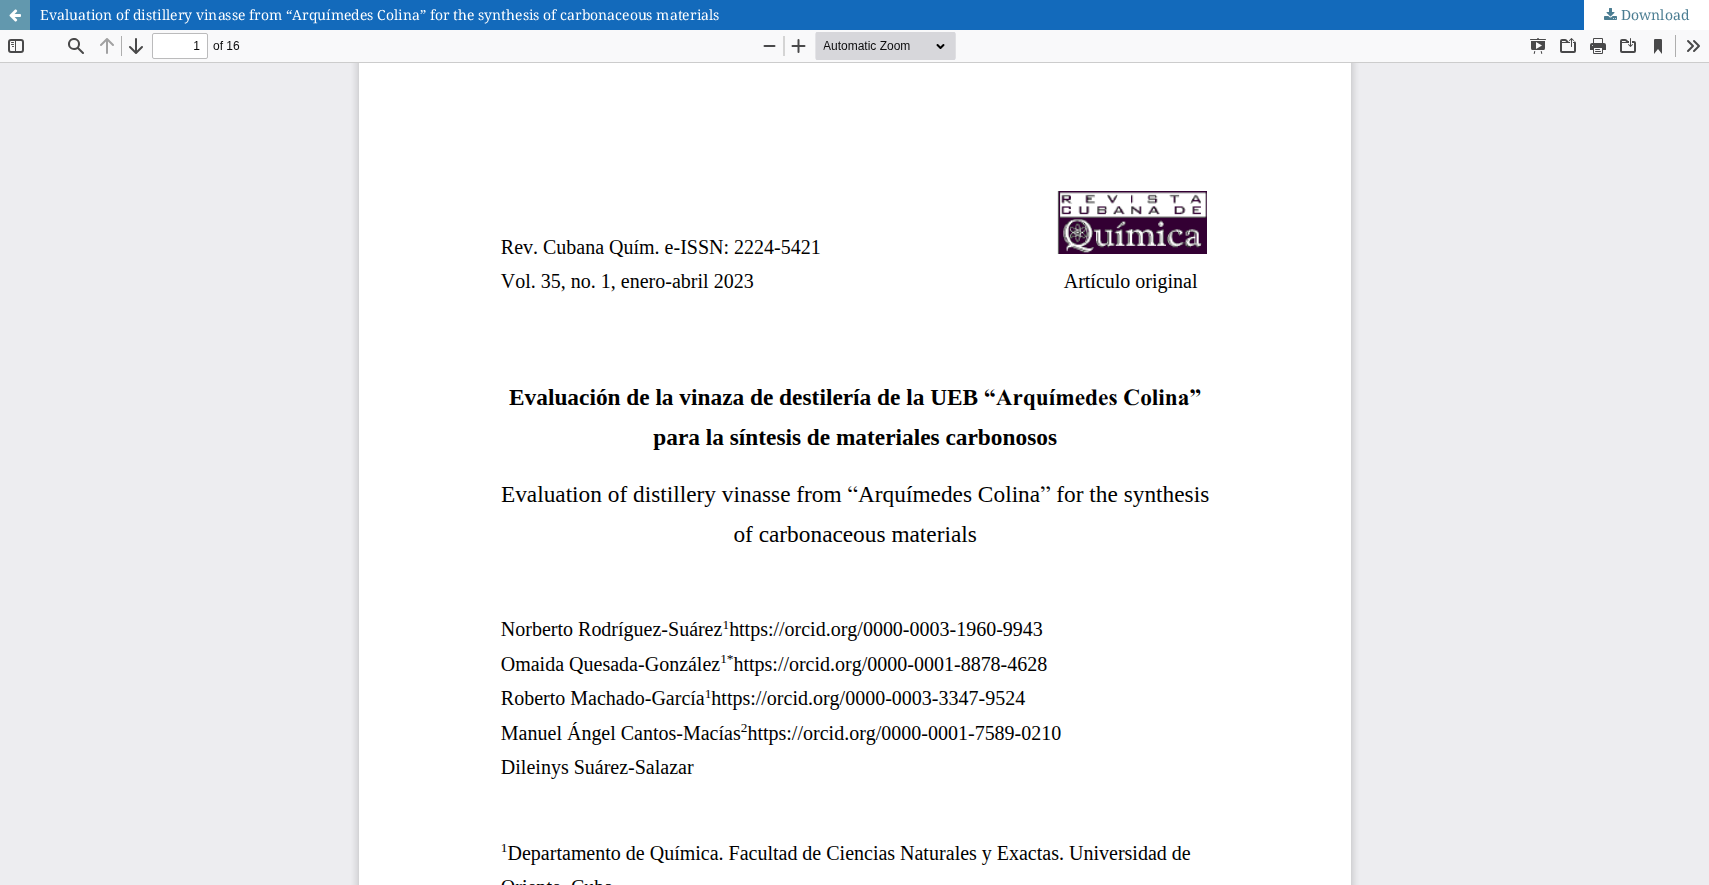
%!PS
<< /PageSize [1709 885] >> setpagedevice
/rgb { dup -16 bitshift 255 div exch dup -8 bitshift 255 and 255 div exch 255 and 255 div setrgbcolor } def
/font { [ exch dup neg 0 0 3 -1 roll 0 0 ] selectfont } def
/text { moveto show } def
/picture { 5 dict begin { /h /w /y /x /name } { exch def } forall
  gsave x y translate w h scale
  w h 8 [w 0 0 h 0 0] name (r) file false 3 colorimage grestore end } def
0 885 translate 1 -1 scale
4 setmiterlimit
/s1 { /NotoSerif-Regular 14 font 16#FFFFFF rgb } def
/s2 { /NotoSerif-Regular 14 font 16#4B7D92 rgb } def
16#FFFFFF rgb
0 0 1709 885 rectfill
16#136ABB rgb
30 0 1554 30 rectfill
16#6298AE rgb
0 0 30 30 rectfill
(pic1.raw) 9 9 12 13 picture
s1
(Evaluation of distillery vinasse from “Arquímedes Colina” for the synthesis of carbonaceous materials) 40 20 text
(pic2.raw) 1604 8 13 12 picture
s2
(Download) 1621 20 text
(pic3.raw) 0 30 1709 855 picture
showpage
